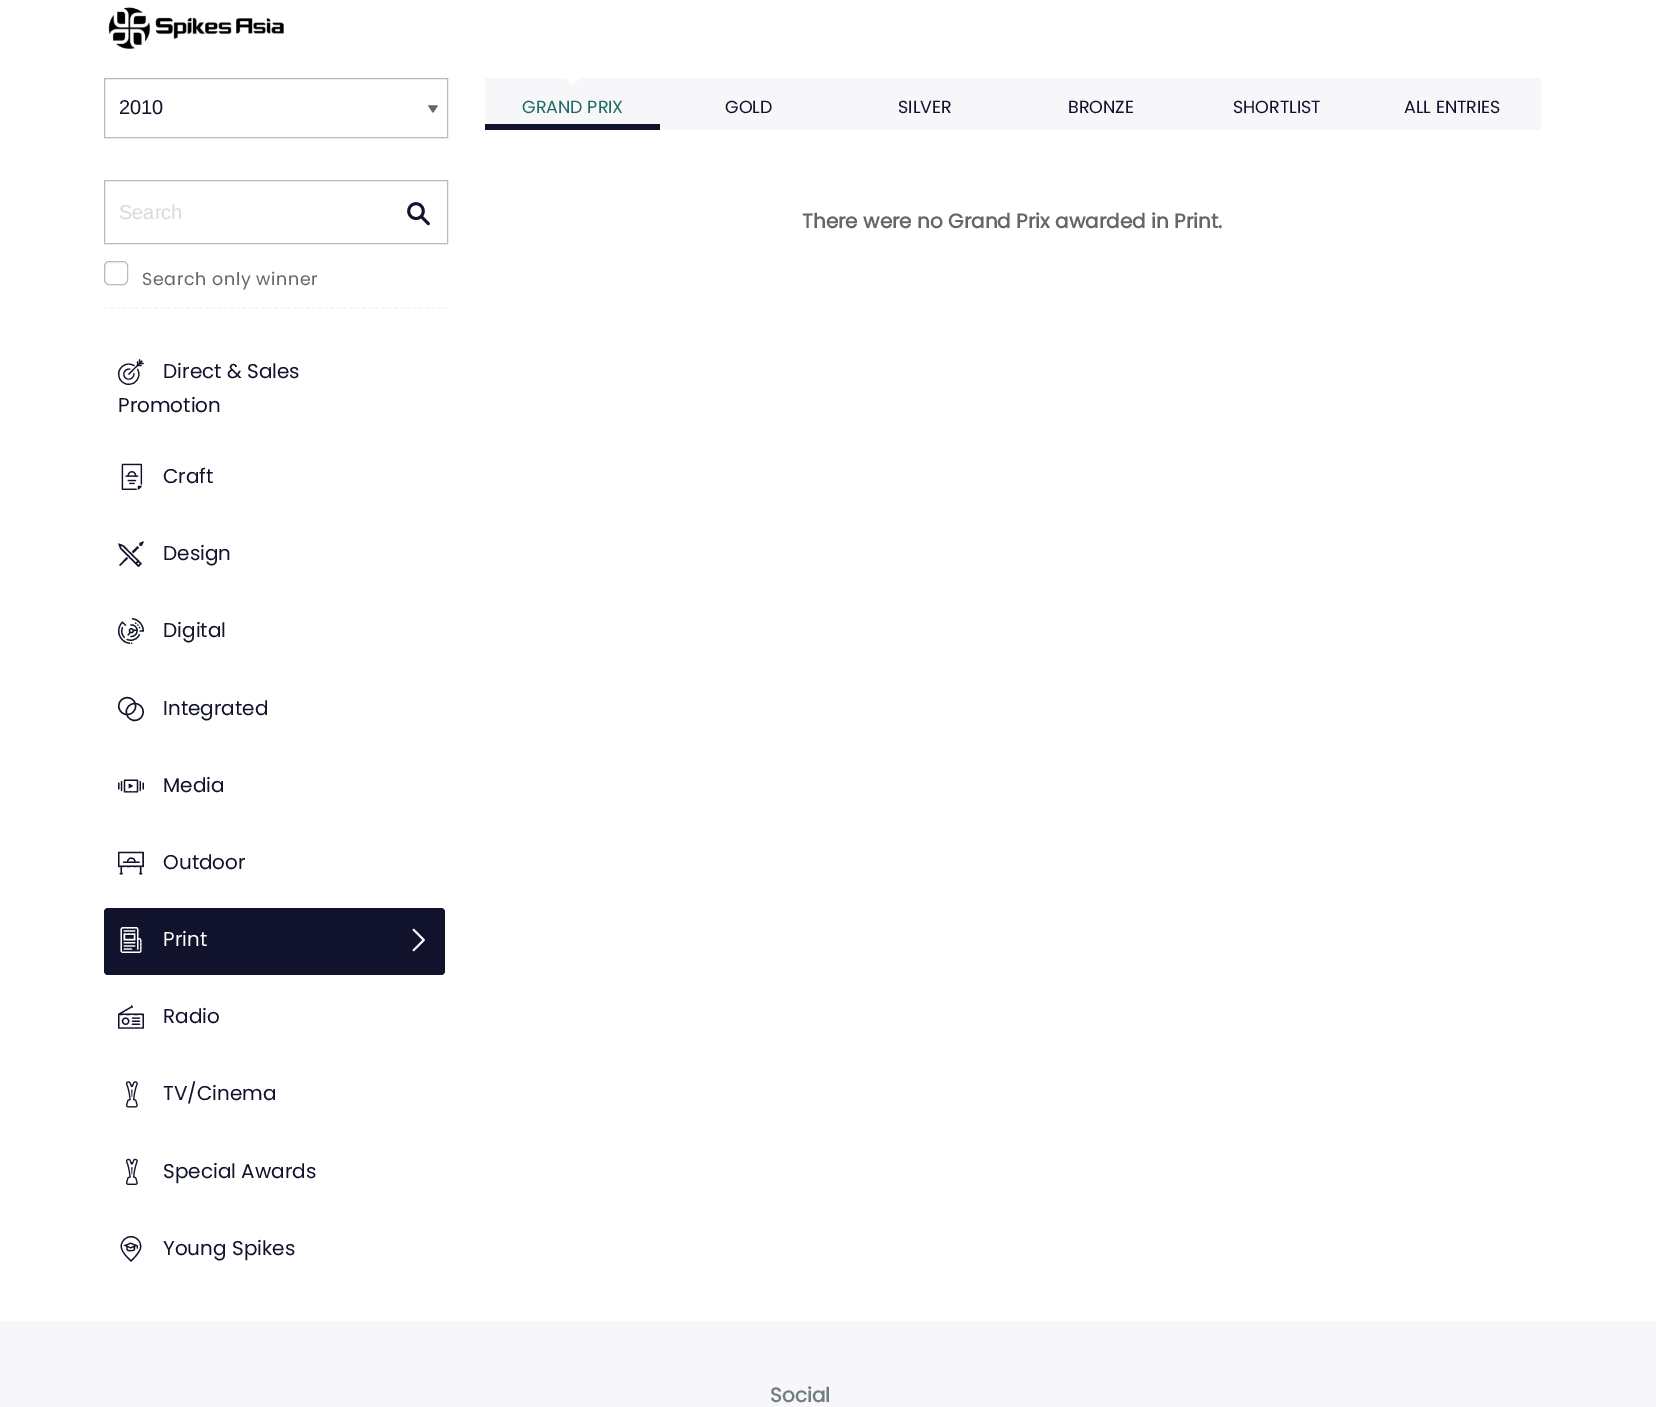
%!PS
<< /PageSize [1656 1407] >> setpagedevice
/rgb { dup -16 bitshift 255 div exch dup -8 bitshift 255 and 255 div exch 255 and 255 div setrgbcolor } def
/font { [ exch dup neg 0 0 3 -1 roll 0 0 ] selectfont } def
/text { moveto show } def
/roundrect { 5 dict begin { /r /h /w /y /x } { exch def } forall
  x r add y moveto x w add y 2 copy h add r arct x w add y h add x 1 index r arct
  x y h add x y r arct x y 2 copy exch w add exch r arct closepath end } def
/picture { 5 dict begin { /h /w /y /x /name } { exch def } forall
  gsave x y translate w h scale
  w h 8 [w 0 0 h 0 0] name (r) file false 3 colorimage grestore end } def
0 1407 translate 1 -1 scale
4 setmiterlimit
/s1 { /LiberationSans-Regular 20 font 16#10132B rgb } def
/s2 { /LiberationSans-Regular 20 font 16#D5DBDD rgb } def
/s3 { /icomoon-Regular 26 font 16#10132B rgb } def
/s4 { /Poppins-Regular 20 font 16#10132B rgb } def
/s5 { /icomoon-Regular 26 font 16#FFFFFF rgb } def
/s6 { /Poppins-Regular 20 font 16#FFFFFF rgb } def
/s7 { /Poppins-Regular 17.5 font 16#206C65 rgb } def
/s8 { /Poppins-Regular 17.5 font 16#10132B rgb } def
/s9 { /Poppins-Bold 20 font 16#666666 rgb } def
/s10 { /Poppins-Bold 20 font 16#6F7E82 rgb } def
16#FFFFFF rgb
0 0 1656 1407 rectfill
(pic1.raw) 108 7 176 42 picture
16#B2BDC0 rgb
104.5 78.5 343 59 rectstroke
s1
(2010) 119 114 text
/icomoon-Regular 10 font
16#666666 rgb
gsave 428 104 translate 90 rotate 0 0 moveto (9) show grestore
16#F2F2F2 rgb
1.2 setlinewidth
[3.75 2.55] 0 setdash
104 308 moveto 447.5 308 lineto stroke
16#B2BDC0 rgb
1 setlinewidth
[] 0 setdash
104.5 180.5 343 63 rectstroke
s2
(Search) 119 219 text
(pic2.raw) 407 202 23 24 picture
16#F7F7F7 rgb
110 264 moveto 124.5 264 lineto 124 263.5 123 263 122 263 curveto 109 263 lineto 107 263 105 265 105 267 curveto 105 280 lineto 105 281.5 106 283 107.5 283.5 curveto 106.5 282.5 106 281 106 279.5 curveto 106 268.5 lineto 107 266 lineto 107.5 264.5 108.5 264 110 264 curveto closepath fill
16#B2BDC0 rgb
104.5 261.5 23 23 4.5 roundrect stroke
/Poppins-Regular 17.5 font
16#666666 rgb
142 285 moveto 0.6 0 (Search only winner) ashow
s3
(+) 118 385 text
s4
(Direct & Sales) 163 378 text
(Promotion) 118 412 text
(pic3.raw) 121 463 22 27 picture
(Craft) 163 483 text
s3
(\)) 118 567 text
s4
(Design) 163 560 text
s3
(\() 118 644 text
s4
(Digital) 163 637 text
s3
(^) 118 722 text
s4
(Integrated) 163 715 text
s3
(_) 118 799 text
s4
(Media) 163 792 text
s3
(|) 118 876 text
s4
(Outdoor) 163 869 text
104 908 341 67 4 roundrect fill
s5
(?) 118 953 text
s6
(Print) 163 946 text
(pic4.raw) 412 928 13 24 picture
s3
(;) 118 1030 text
s4
(Radio) 163 1023 text
(pic5.raw) 125 1081 13 27 picture
(TV/Cinema) 163 1100 text
(pic6.raw) 125 1158 13 27 picture
(Special Awards) 163 1178 text
s3
(1) 118 1262 text
s4
(Young Spikes) 163 1255 text
16#F7F7F9 rgb
485 78 1056 52 rectfill
16#10132B rgb
485 124 175 6 rectfill
16#FFFFFF rgb
565 77.5 moveto 580 77.5 lineto 572.5 85 lineto closepath fill
s7
(GRAND PRIX) 522 113 text
s8
(GOLD) 725 113 text
(SILVER) 898 113 text
(BRONZE) 1068 113 text
(SHORTLIST) 1233 113 text
(ALL ENTRIES) 1404 113 text
s9
(There were no Grand Prix awarded in Print.) 802 228 text
16#F7F7F9 rgb
0 1321 1656 86 rectfill
s10
(Social) 770 1402 text
showpage
